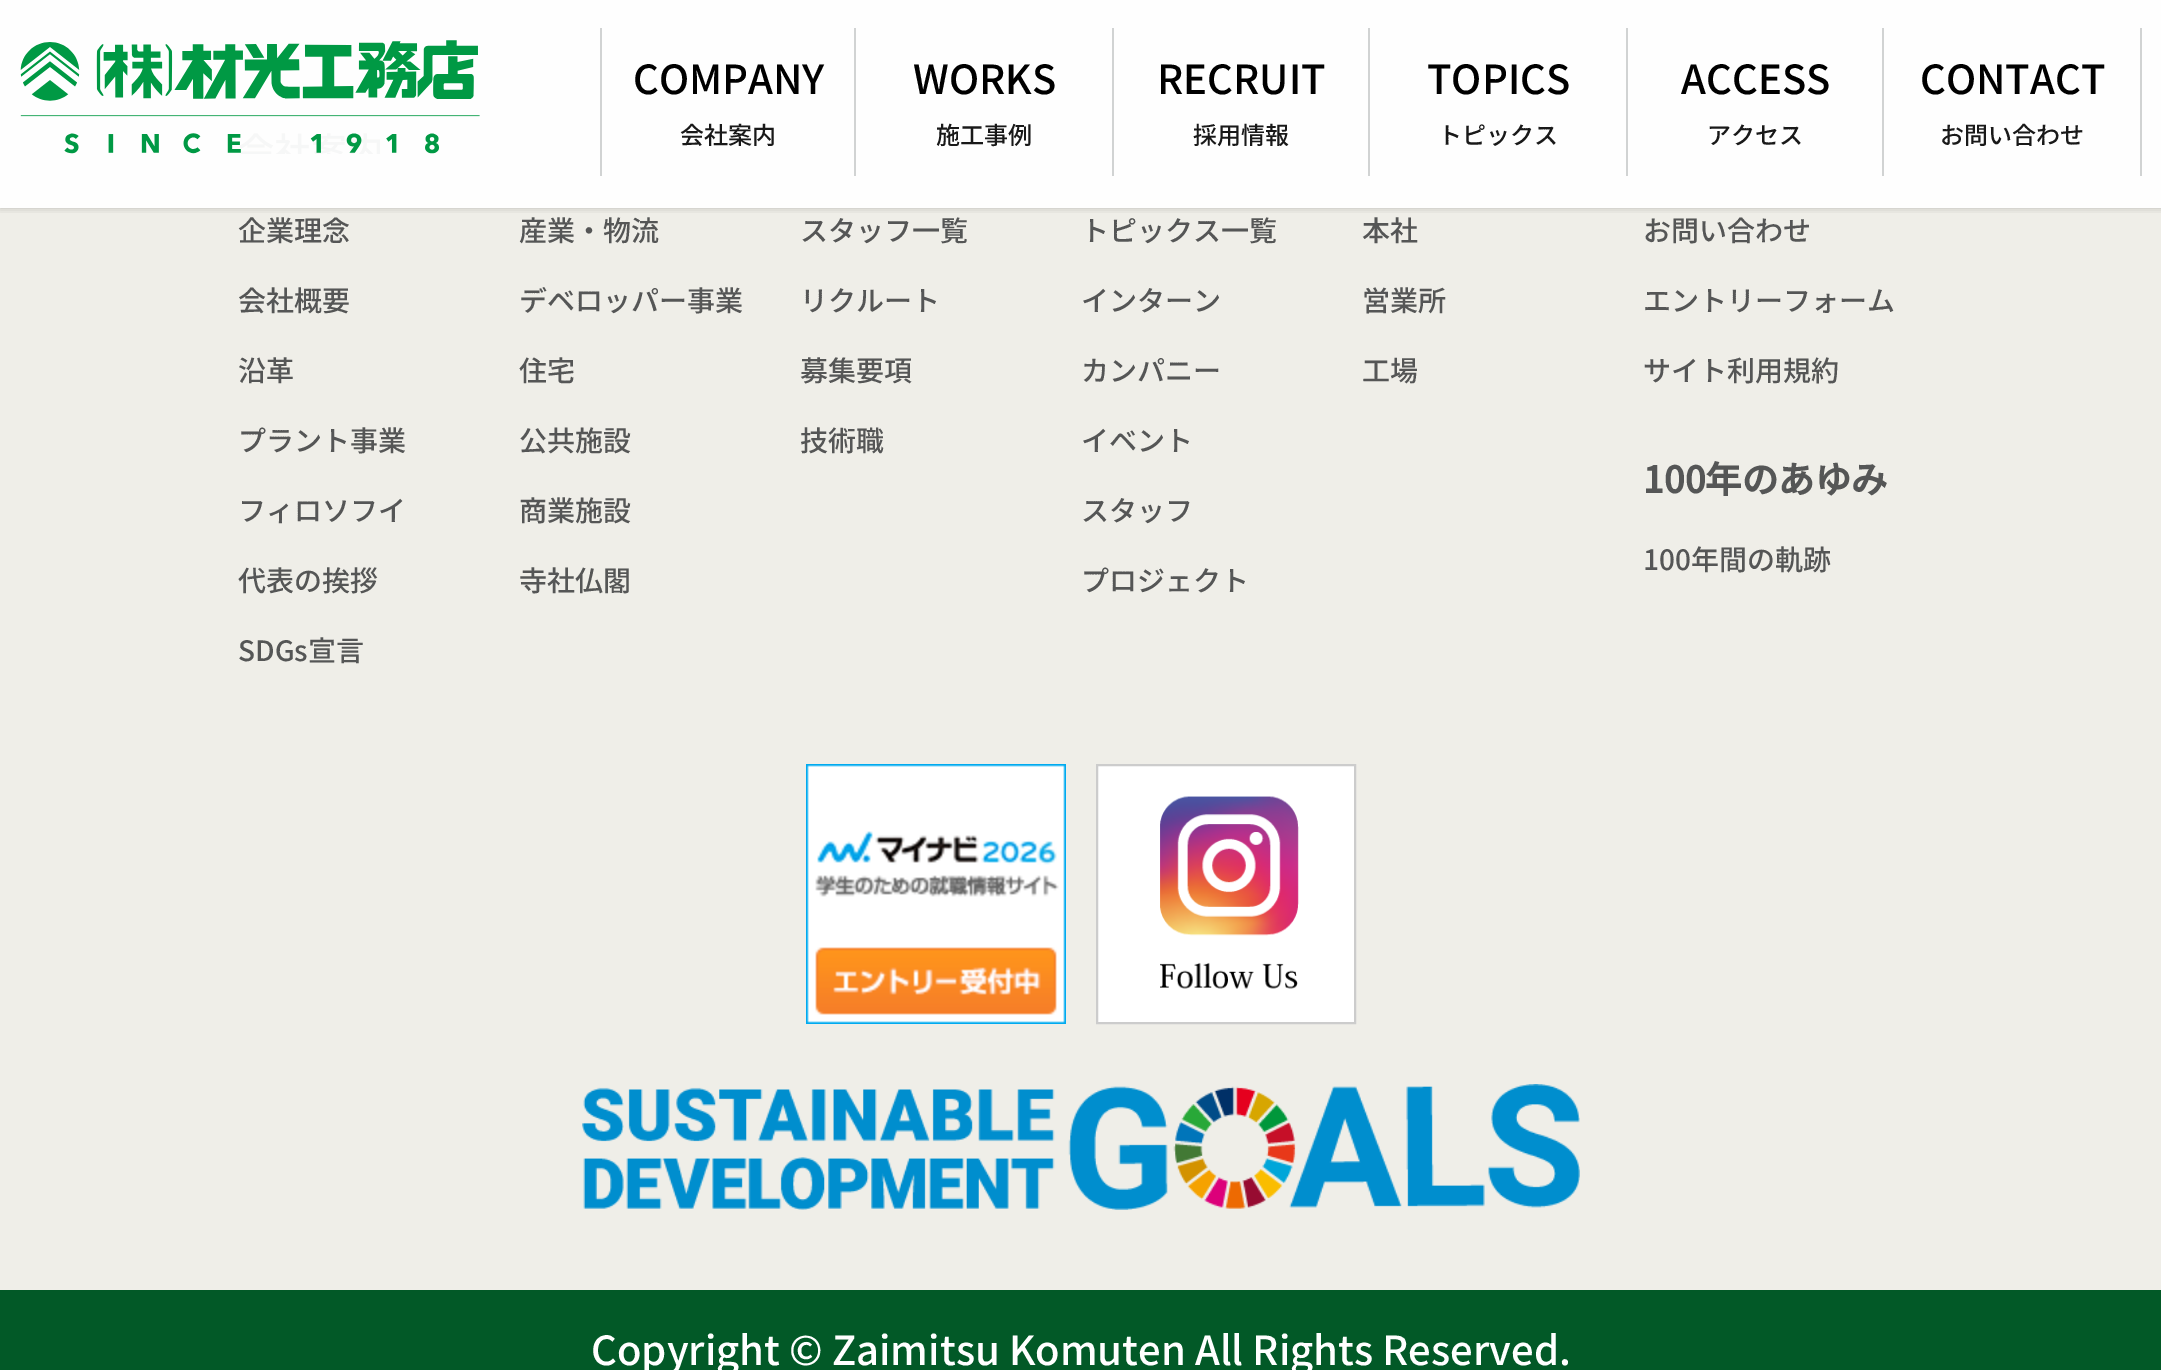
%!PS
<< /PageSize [2161 1370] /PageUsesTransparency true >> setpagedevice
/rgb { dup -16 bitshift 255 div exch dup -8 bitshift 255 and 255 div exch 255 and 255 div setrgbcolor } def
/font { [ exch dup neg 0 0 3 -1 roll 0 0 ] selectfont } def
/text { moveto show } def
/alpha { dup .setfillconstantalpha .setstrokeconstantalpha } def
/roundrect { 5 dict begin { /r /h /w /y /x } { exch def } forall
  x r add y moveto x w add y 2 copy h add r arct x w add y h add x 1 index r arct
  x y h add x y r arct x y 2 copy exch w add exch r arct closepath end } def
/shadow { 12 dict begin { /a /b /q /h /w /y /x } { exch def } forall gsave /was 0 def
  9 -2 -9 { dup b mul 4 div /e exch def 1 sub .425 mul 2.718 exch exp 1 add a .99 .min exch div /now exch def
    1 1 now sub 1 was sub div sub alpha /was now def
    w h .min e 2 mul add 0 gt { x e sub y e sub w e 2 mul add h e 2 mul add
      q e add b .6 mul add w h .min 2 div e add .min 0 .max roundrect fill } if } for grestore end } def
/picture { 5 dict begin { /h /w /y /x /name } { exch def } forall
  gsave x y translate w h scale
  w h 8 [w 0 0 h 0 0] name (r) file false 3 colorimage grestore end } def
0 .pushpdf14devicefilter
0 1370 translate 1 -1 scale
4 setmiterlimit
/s1 { /NotoSansJP-Thin 40 font 16#000000 rgb } def
/s2 { /NotoSansJP-Thin 24 font 16#191919 rgb } def
/s3 { /NotoSansJP-Thin 28 font 16#555656 rgb } def
/s4 { /NotoSansJP-Bold 36.5 font 16#555656 rgb } def
/s5 { /NotoSansJP-Thin 40 font 16#FFFFFF rgb } def
16#EFEEE8 rgb
0 0 2161 1370 rectfill
16#FEFEFE rgb
0 0 2161 208 rectfill
gsave
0 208 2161 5 rectclip
16#000000 rgb
0 0 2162 208 0 4 0.2 shadow
grestore
(pic1.raw) 20 40 460 114 picture
16#D1D3D3 rgb
854 28 2 148 rectfill
600 28 2 148 rectfill
s1
(COMPANY) 633 94 text
s2
(会社案内) 680 144 text
16#D1D3D3 rgb
1112 28 2 148 rectfill
s1
(WORKS) 913 94 text
s2
(施工事例) 936 144 text
16#D1D3D3 rgb
1368 28 2 148 rectfill
s1
(RECRUIT) 1157 94 text
s2
(採用情報) 1193 144 text
16#D1D3D3 rgb
1626 28 2 148 rectfill
s1
(TOPICS) 1427 94 text
s2
(トピックス) 1438 144 text
16#D1D3D3 rgb
1882 28 2 148 rectfill
s1
(ACCESS) 1681 94 text
s2
(アクセス) 1707 144 text
16#D1D3D3 rgb
2140 28 2 148 rectfill
s1
(CONTACT) 1920 94 text
s2
(お問い合わせ) 1940 144 text
s3
(企業理念) 238 241 text
(会社概要) 238 311 text
(沿革) 238 381 text
(プラント事業) 238 451 text
(フィロソフイ) 238 521 text
(代表の挨拶) 238 591 text
(SDGs宣言) 238 661 text
(産業・物流) 519 241 text
(デベロッパー事業) 519 311 text
(住宅) 519 381 text
(公共施設) 519 451 text
(商業施設) 519 521 text
(寺社仏閣) 519 591 text
(スタッフ一覧) 800 241 text
(リクルート) 800 311 text
(募集要項) 800 381 text
(技術職) 800 451 text
(トピックス一覧) 1081 241 text
(インターン) 1081 311 text
(カンパニー) 1081 381 text
(イベント) 1081 451 text
(スタッフ) 1081 521 text
(プロジェクト) 1081 591 text
(本社) 1362 241 text
(営業所) 1362 311 text
(工場) 1362 381 text
(お問い合わせ) 1643 241 text
(エントリーフォーム) 1643 311 text
(サイト利用規約) 1643 381 text
s4
(100年のあゆみ) 1643 493 text
s3
(100年間の軌跡) 1643 570 text
(pic2.raw) 806 764 260 260 picture
16#FFFFFF rgb
1097 765 moveto 1355 765 lineto 1355 1023 lineto 1097 1023 lineto closepath gsave fill grestore
16#CCCCCC rgb
2 setlinewidth
stroke
(pic3.raw) 1160 796 139 193 picture
(pic4.raw) 582 1084 998 126 picture
16#025927 rgb
0 1290 2161 80 rectfill
s5
(Copyright © Zaimitsu Komuten All Rights Reserved.) 591 1365 text
.poppdf14devicefilter showpage
